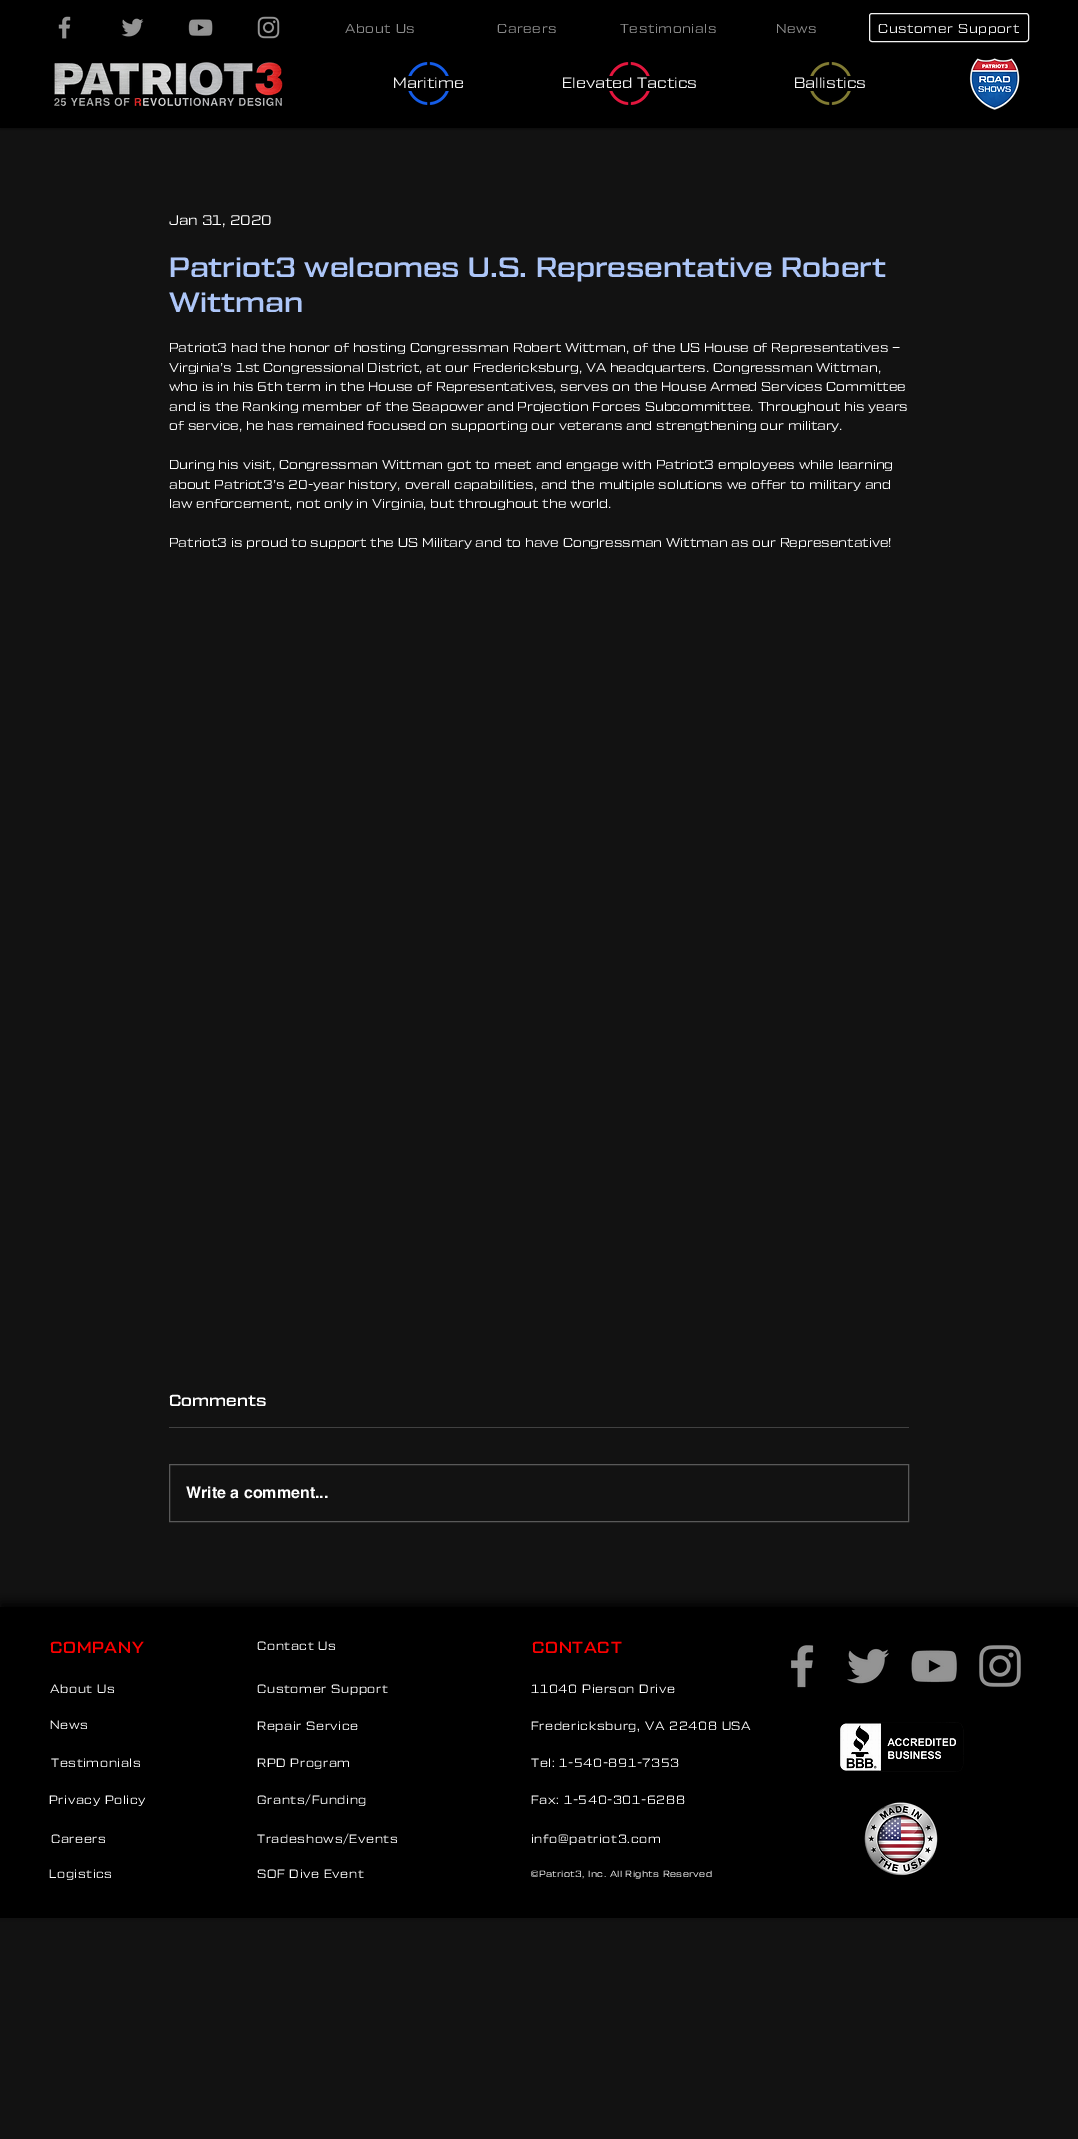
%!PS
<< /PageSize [1078 2139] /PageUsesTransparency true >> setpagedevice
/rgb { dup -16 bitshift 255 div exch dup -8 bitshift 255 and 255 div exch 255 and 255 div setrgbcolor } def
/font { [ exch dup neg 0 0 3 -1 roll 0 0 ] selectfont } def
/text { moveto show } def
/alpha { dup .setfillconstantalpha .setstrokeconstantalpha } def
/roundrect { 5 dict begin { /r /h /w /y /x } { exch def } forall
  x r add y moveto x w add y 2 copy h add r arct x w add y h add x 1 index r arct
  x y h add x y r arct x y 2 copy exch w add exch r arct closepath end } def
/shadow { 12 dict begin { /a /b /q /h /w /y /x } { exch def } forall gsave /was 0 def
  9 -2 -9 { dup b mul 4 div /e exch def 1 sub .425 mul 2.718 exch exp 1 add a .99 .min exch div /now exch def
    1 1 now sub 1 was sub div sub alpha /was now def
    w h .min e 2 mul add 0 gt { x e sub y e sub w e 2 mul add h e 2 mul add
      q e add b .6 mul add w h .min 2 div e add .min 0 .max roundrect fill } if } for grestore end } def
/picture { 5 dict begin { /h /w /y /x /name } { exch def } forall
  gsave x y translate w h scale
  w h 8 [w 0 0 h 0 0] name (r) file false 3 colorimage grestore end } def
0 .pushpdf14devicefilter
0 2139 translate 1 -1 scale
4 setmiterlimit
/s1 { /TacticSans-Regular 15 font 16#F3F3F3 rgb } def
/s2 { /TacticSans-Regular 14 font 16#FFFFFF rgb } def
/s3 { /TacticSans-Medium 28 font 16#ADC6F8 rgb } def
/s4 { /TacticSans-Regular 13 font 16#FFFFFF rgb } def
/s5 { /TacticSans-Medium 16 font 16#FFFFFF rgb } def
/s6 { /helvetica-Bold 16 font 16#FFFFFF rgb } def
16#121212 rgb
0 0 1078 2139 rectfill
16#000000 rgb
0 0 1078 128 0 2.5 0.7 shadow
0 0 1078 128 rectfill
(pic1.raw) 58 16 13 23 picture
(pic2.raw) 121 18 23 19 picture
(pic3.raw) 188 19 25 17 picture
(pic4.raw) 257 16 23 23 picture
/TacticSans-Regular 13 font
16#8C8C8C rgb
345 33 moveto 0.6 0 (About Us) ashow
497 33 moveto 0.6 0 (Careers) ashow
620 33 moveto 0.6 0 (Testimonials) ashow
776 33 moveto 0.6 0 (News) ashow
16#F3F3F3 rgb
869.5 13.5 159 28 2.5 roundrect stroke
878 33 moveto 0.6 0 (Customer Support) ashow
(pic5.raw) 54 62 229 45 picture
(pic6.raw) 408 62 41 43 picture
(pic7.raw) 609 62 41 43 picture
(pic8.raw) 810 62 41 43 picture
(pic9.raw) 969 58 51 52 picture
16#000000 rgb
408 76 443 15 rectfill
s1
(Maritime) 393 88 text
(Elevated Tactics) 562 88 text
(Ballistics) 794 88 text
s2
(Jan 31, 2020) 169 225 text
s3
(Patriot3 welcomes U.S. Representative Robert) 169 277 text
(Wittman) 169 312 text
s4
(Patriot3 had the honor of hosting Congressman Robert Wittman, of the US House of Representatives –) 169 352 text
(Virginia’s 1st Congressional District, at our Fredericksburg, VA headquarters. Congressman Wittman,) 169 372 text
(who is in his 6th term in the House of Representatives, serves on the House Armed Services Committee) 169 391 text
(and is the Ranking member of the Seapower and Projection Forces Subcommittee. Throughout his years) 169 411 text
(of service, he has remained focused on supporting our veterans and strengthening our military.) 169 430 text
(During his visit, Congressman Wittman got to meet and engage with Patriot3 employees while learning) 169 469 text
(about Patriot3’s 20-year history, overall capabilities, and the multiple solutions we offer to military and) 169 489 text
(law enforcement, not only in Virginia, but throughout the world.) 169 508 text
(Patriot3 is proud to support the US Military and to have Congressman Wittman as our Representative!) 169 547 text
s5
(Comments) 169 1406 text
16#414141 rgb
169 1427 740 1 rectfill
16#595959 rgb
169.5 1464.5 739 57 rectstroke
s6
(Write a comment...) 186 1498 text
16#000000 rgb
0 1602 1078 311 0 5.5 0.89 shadow
0 1607 1078 311 rectfill
/TacticSans-Medium 16 font
16#FA0000 rgb
50 1653 moveto 0.75 0 (COMPANY) ashow
/TacticSans-Regular 12 font
16#FFFFFF rgb
257 1650 moveto 0.6 0 (Contact Us) ashow
/TacticSans-Medium 16 font
16#FA0000 rgb
532 1653 moveto 0.75 0 (CONTACT) ashow
(pic10.raw) 791 1645 23 43 picture
(pic11.raw) 847 1648 42 36 picture
(pic12.raw) 911 1650 46 33 picture
(pic13.raw) 979 1645 42 42 picture
/TacticSans-Regular 12 font
16#FFFFFF rgb
50 1693 moveto 0.6 0 (About Us) ashow
257 1693 moveto 0.6 0 (Customer Support) ashow
531 1693 moveto 0.6 0 (11040 Pierson Drive) ashow
50 1729 moveto 0.6 0 (News) ashow
257 1730 moveto 0.6 0 (Repair Service) ashow
531 1730 moveto 0.6 0 (Fredericksburg, VA 22408 USA) ashow
(pic14.raw) 840 1722 124 50 picture
51 1767 moveto 0.6 0 (Testimonials) ashow
257 1767 moveto 0.6 0 (RPD Program) ashow
531 1767 moveto 0.6 0 (Tel: 1-540-891-7353) ashow
49 1804 moveto 0.6 0 (Privacy Policy) ashow
257 1804 moveto 0.6 0 (Grants/Funding) ashow
531 1804 moveto 0.6 0 (Fax: 1-540-301-6288) ashow
51 1843 moveto 0.6 0 (Careers) ashow
257 1843 moveto 0.6 0 (Tradeshows/Events) ashow
531 1843 moveto 0.6 0 (info@patriot3.com) ashow
(pic15.raw) 864 1802 74 74 picture
49 1878 moveto 0.6 0 (Logistics) ashow
257 1878 moveto 0.6 0 (SOF Dive Event) ashow
/TacticSans-Regular 9 font
531 1877 moveto 0.45 0 (©Patriot3, Inc. All Rights Reserved) ashow
.poppdf14devicefilter showpage
